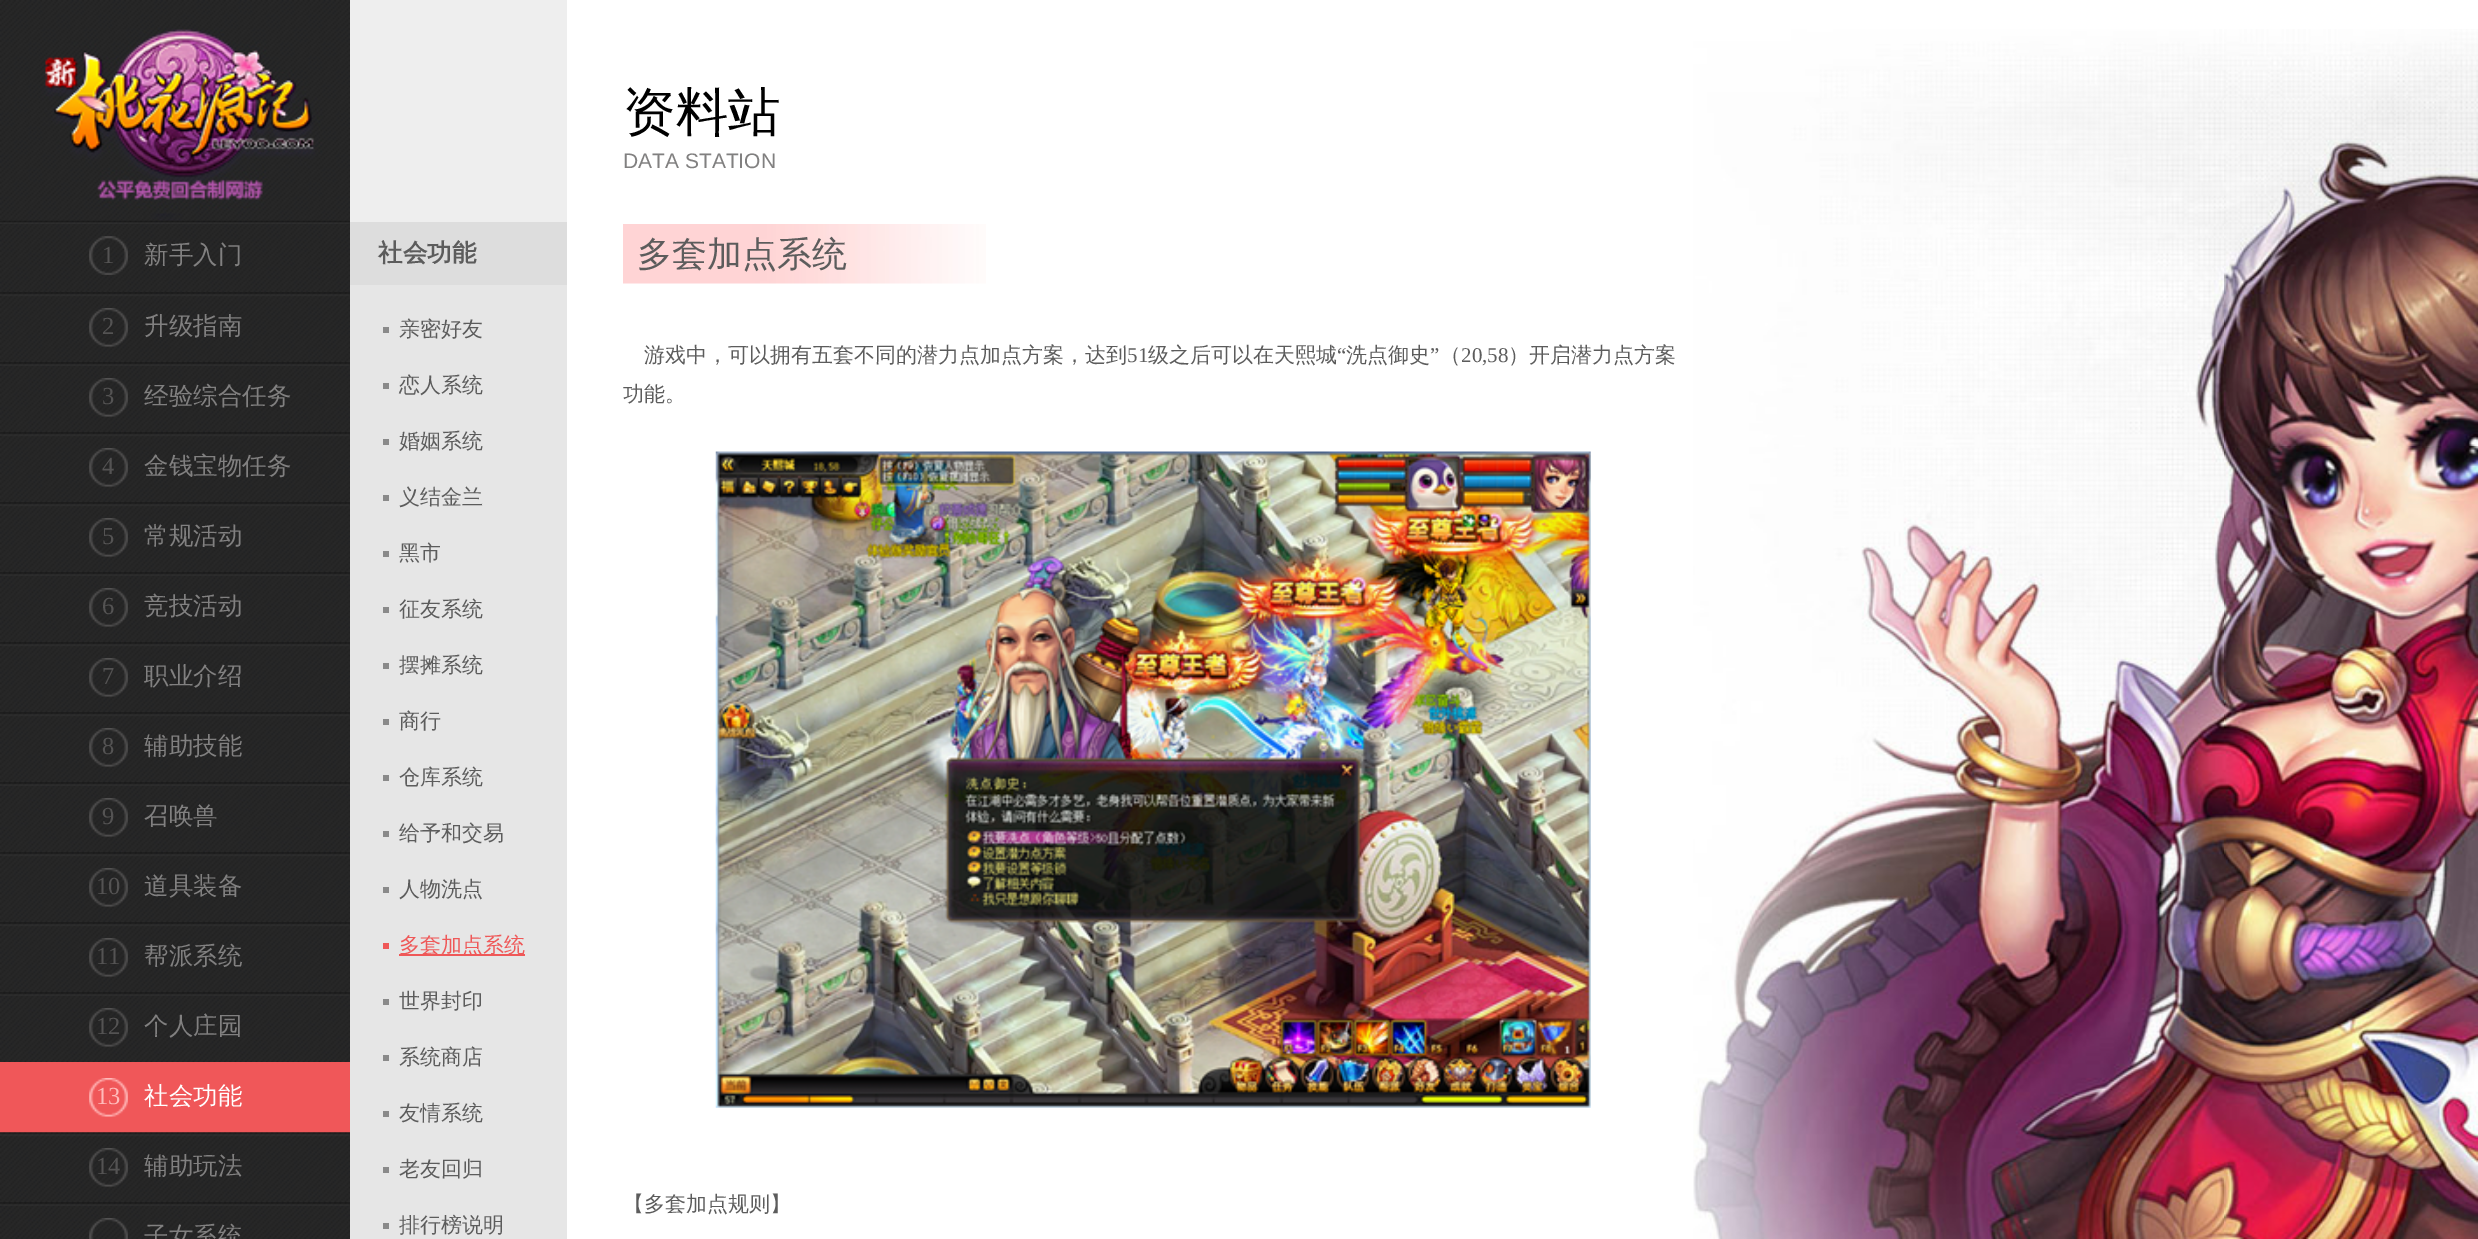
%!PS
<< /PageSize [2478 1239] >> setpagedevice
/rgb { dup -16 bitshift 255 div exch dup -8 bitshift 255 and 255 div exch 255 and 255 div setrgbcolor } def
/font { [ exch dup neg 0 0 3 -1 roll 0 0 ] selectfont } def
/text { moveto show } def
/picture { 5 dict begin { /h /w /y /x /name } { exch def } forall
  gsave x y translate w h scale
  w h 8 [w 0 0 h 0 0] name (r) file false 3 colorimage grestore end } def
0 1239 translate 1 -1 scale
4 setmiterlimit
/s1 { /LiberationSerif-Regular 24.5 font 16#545353 rgb } def
/s2 { /WenQuanYiZenHei-Medium 24.5 font 16#818080 rgb } def
/s3 { /LiberationSerif-Regular 24.5 font 16#FFBBBB rgb } def
/s4 { /WenQuanYiZenHei-Medium 24.5 font 16#FFFFFF rgb } def
/s5 { /WenQuanYiZenHei-Bold 24.5 font 16#5C5C5C rgb } def
/s6 { /WenQuanYiZenHei-Medium 21 font 16#5C5C5C rgb } def
/s7 { /WenQuanYiZenHei-Medium 21 font 16#EF5858 rgb } def
/s8 { /WenQuanYiZenHei-Medium 52.5 font 16#000000 rgb } def
/s9 { /LiberationSans-Regular 21 font 16#818080 rgb } def
/s10 { /WenQuanYiZenHei-Medium 35 font 16#5C5C5C rgb } def
/s11 { /LiberationSerif-Regular 21 font 16#5C5C5C rgb } def
16#FFFFFF rgb
0 0 2478 1239 rectfill
(pic1.raw) 0 0 350 1239 picture
(pic2.raw) 0 220 350 4 picture
(pic3.raw) 89 236 39 39 picture
s1
(1) 102 263 text
s2
(新手入门) 144 263 text
(pic4.raw) 0 292 350 70 picture
(pic5.raw) 89 308 39 39 picture
s1
(2) 102 334 text
s2
(升级指南) 144 334 text
(pic6.raw) 0 362 350 4 picture
(pic7.raw) 89 378 39 39 picture
s1
(3) 102 404 text
s2
(经验综合任务) 144 404 text
(pic8.raw) 0 432 350 70 picture
(pic9.raw) 89 448 39 39 picture
s1
(4) 102 474 text
s2
(金钱宝物任务) 144 474 text
(pic10.raw) 0 502 350 70 picture
(pic5.raw) 89 518 39 39 picture
s1
(5) 102 544 text
s2
(常规活动) 144 544 text
(pic6.raw) 0 572 350 4 picture
(pic11.raw) 89 588 39 39 picture
s1
(6) 102 614 text
s2
(竞技活动) 144 614 text
(pic12.raw) 0 642 350 70 picture
(pic5.raw) 89 658 39 39 picture
s1
(7) 102 684 text
s2
(职业介绍) 144 684 text
(pic13.raw) 0 712 350 70 picture
(pic14.raw) 89 728 39 39 picture
s1
(8) 102 754 text
s2
(辅助技能) 144 754 text
(pic6.raw) 0 782 350 4 picture
(pic15.raw) 89 798 39 39 picture
s1
(9) 102 824 text
s2
(召唤兽) 144 824 text
(pic12.raw) 0 852 350 70 picture
(pic5.raw) 89 868 39 39 picture
s1
(10) 96 894 text
s2
(道具装备) 144 894 text
(pic4.raw) 0 922 350 70 picture
(pic5.raw) 89 938 39 39 picture
s1
(11) 96 964 text
s2
(帮派系统) 144 964 text
(pic6.raw) 0 992 350 4 picture
(pic16.raw) 89 1008 39 39 picture
s1
(12) 96 1034 text
s2
(个人庄园) 144 1034 text
16#F05759 rgb
0 1062 350 71 rectfill
(pic17.raw) 89 1078 39 39 picture
s3
(13) 96 1104 text
s4
(社会功能) 144 1104 text
(pic18.raw) 0 1132 350 70 picture
(pic5.raw) 89 1148 39 39 picture
s1
(14) 96 1174 text
s2
(辅助玩法) 144 1174 text
(pic6.raw) 0 1202 350 4 picture
(pic19.raw) 89 1218 39 21 picture
(子女系统) 144 1244 text
16#EEEEEE rgb
350 0 217 222 rectfill
16#DDDDDD rgb
350 222 217 63 rectfill
s5
(社会功能) 378 261 text
16#E6E6E6 rgb
350 285 217 954 rectfill
16#8A8A8A rgb
383 327 6 6 rectfill
s6
(亲密好友) 399 336 text
16#8A8A8A rgb
383 383 6 6 rectfill
s6
(恋人系统) 399 392 text
16#8A8A8A rgb
383 439 6 6 rectfill
s6
(婚姻系统) 399 448 text
16#8A8A8A rgb
383 495 6 6 rectfill
s6
(义结金兰) 399 504 text
16#8A8A8A rgb
383 551 6 6 rectfill
s6
(黑市) 399 560 text
16#8A8A8A rgb
383 607 6 6 rectfill
s6
(征友系统) 399 616 text
16#8A8A8A rgb
383 663 6 6 rectfill
s6
(摆摊系统) 399 672 text
16#8A8A8A rgb
383 719 6 6 rectfill
s6
(商行) 399 728 text
16#8A8A8A rgb
383 775 6 6 rectfill
s6
(仓库系统) 399 784 text
16#8A8A8A rgb
383 831 6 6 rectfill
s6
(给予和交易) 399 840 text
16#8A8A8A rgb
383 887 6 6 rectfill
s6
(人物洗点) 399 896 text
16#EF5858 rgb
383 943 6 6 rectfill
399 954 126 2 rectfill
(多套加点系统) 399 952 text
16#8A8A8A rgb
383 999 6 6 rectfill
s6
(世界封印) 399 1008 text
16#8A8A8A rgb
383 1055 6 6 rectfill
s6
(系统商店) 399 1064 text
16#8A8A8A rgb
383 1111 6 6 rectfill
s6
(友情系统) 399 1120 text
16#8A8A8A rgb
383 1167 6 6 rectfill
s6
(老友回归) 399 1176 text
16#8A8A8A rgb
383 1223 6 6 rectfill
s6
(排行榜说明) 399 1232 text
s8
(资料站) 623 130 text
s9
(DATA STATION) 623 168 text
(pic20.raw) 623 224 363 60 picture
s10
(多套加点系统) 637 266 text
s6
(游戏中，可以拥有五套不同的潜力点加点方案，达到) 644 362 text
s11
(51) 1127 362 text
s6
(级之后可以在天熙城) 1148 362 text
s11
(“) 1337 362 text
s6
(洗点御史) 1346 362 text
s11
(”) 1430 362 text
s6
(（) 1440 362 text
s11
(20,58) 1461 362 text
s6
(）开启潜力点方案) 1508 362 text
(功能。) 623 401 text
(pic21.raw) 715 451 876 657 picture
(【多套加点规则】) 623 1211 text
(pic22.raw) 1693 29 785 1210 picture
showpage
